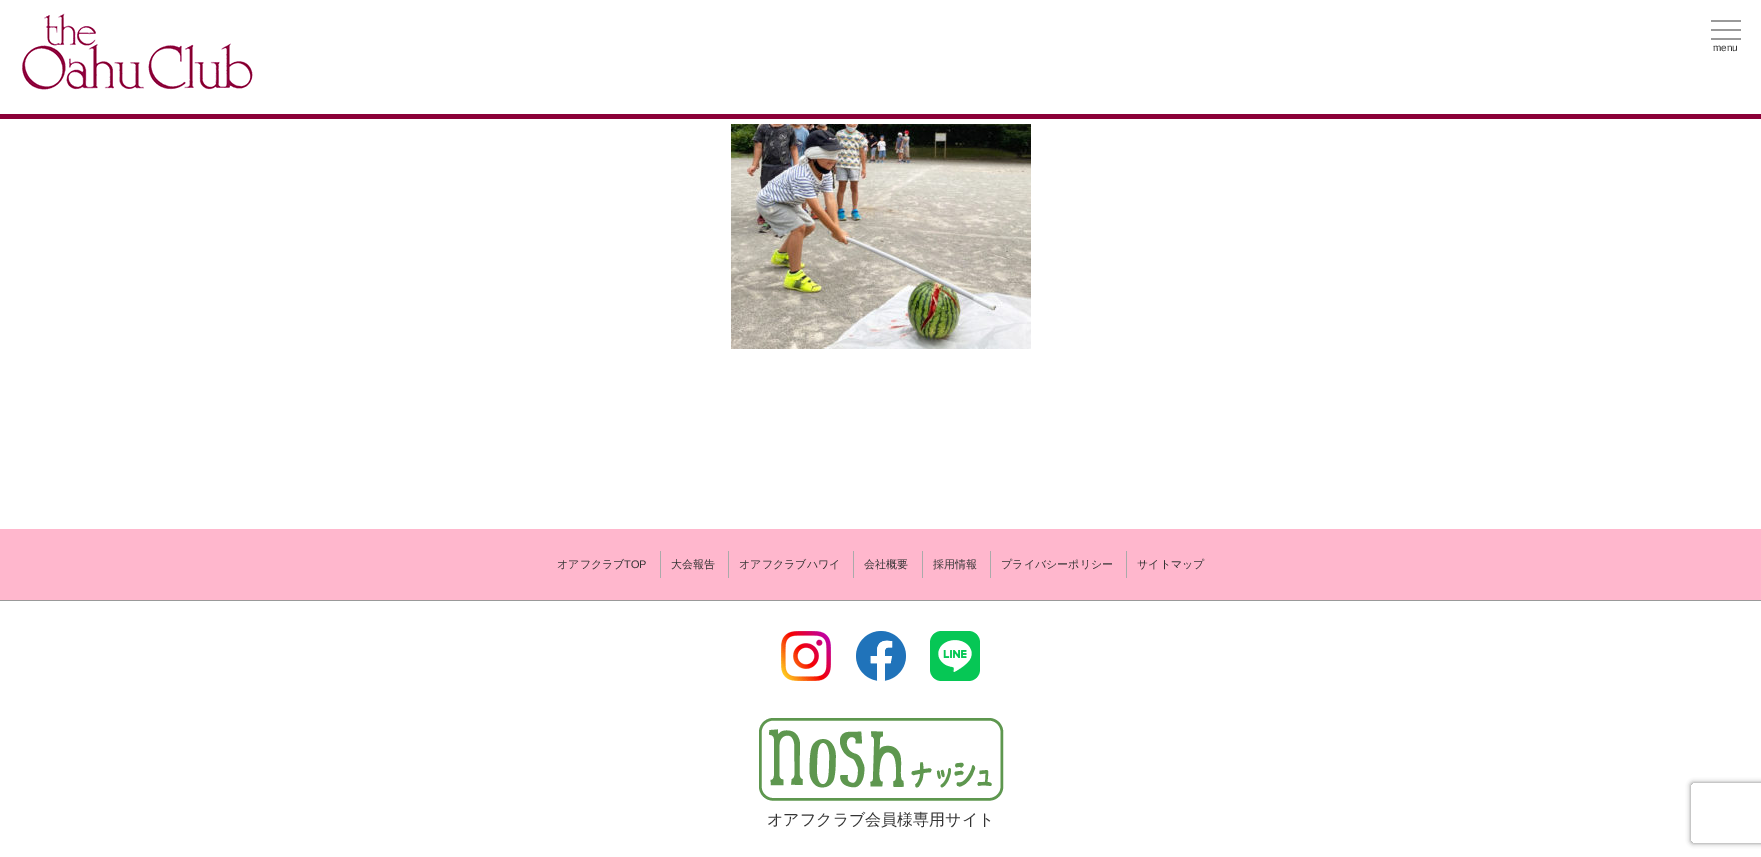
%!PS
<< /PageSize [1761 857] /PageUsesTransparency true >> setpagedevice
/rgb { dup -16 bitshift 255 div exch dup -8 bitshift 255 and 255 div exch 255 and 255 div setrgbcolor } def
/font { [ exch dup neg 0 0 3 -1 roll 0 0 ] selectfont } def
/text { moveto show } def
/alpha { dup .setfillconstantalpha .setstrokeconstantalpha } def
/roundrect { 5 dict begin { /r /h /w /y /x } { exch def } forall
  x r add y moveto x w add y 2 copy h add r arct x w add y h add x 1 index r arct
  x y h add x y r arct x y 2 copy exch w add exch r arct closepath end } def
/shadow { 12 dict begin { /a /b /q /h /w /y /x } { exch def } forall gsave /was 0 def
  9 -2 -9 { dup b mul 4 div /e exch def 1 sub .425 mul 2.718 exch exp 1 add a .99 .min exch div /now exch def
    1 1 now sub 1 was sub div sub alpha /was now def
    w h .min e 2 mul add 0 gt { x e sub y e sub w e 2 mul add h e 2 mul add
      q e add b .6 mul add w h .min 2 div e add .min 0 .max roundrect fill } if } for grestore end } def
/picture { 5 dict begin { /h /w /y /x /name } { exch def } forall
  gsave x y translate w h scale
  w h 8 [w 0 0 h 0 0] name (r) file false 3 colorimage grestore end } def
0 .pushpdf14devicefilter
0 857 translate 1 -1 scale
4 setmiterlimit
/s1 { /LiberationSans-Regular 10 font 16#333333 rgb } def
/s2 { /WenQuanYiZenHei-Medium 11 font 16#333333 rgb } def
/s3 { /LiberationSans-Regular 11 font 16#333333 rgb } def
/s4 { /WenQuanYiZenHei-Medium 16 font 16#333333 rgb } def
16#FFFFFF rgb
0 0 1761 857 rectfill
16#8B0038 rgb
0 114 1761 5 rectfill
(pic1.raw) 22 13 231 77 picture
16#999999 rgb
1711 20 30 2 rectfill
1711 29 30 2 rectfill
1711 38 30 2 rectfill
s1
(menu) 1713 51 text
(pic2.raw) 731 124 300 225 picture
16#FFB7CD rgb
0 529 1761 71 rectfill
s2
(オアフクラブ) 557 568 text
s3
(TOP) 624 568 text
16#AAAAAA rgb
660 551 1 27 rectfill
s2
(大会報告) 671 568 text
16#AAAAAA rgb
728 551 1 27 rectfill
s2
(オアフクラブハワイ) 739 568 text
16#AAAAAA rgb
853 551 1 27 rectfill
s2
(会社概要) 864 568 text
16#AAAAAA rgb
922 551 1 27 rectfill
s2
(採用情報) 933 568 text
16#AAAAAA rgb
990 551 1 27 rectfill
s2
(プライバシーポリシー) 1001 568 text
16#AAAAAA rgb
1126 551 1 27 rectfill
s2
(サイトマップ) 1137 568 text
16#999999 rgb
0 600 1761 1 rectfill
(pic3.raw) 781 631 50 50 picture
(pic4.raw) 856 631 50 50 picture
(pic5.raw) 930 631 50 50 picture
(pic6.raw) 759 718 245 83 picture
s4
(オアフクラブ会員様専用サイト) 767 825 text
gsave
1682 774 moveto 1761 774 lineto 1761 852 lineto 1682 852 lineto closepath 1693 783 moveto 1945 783 lineto 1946 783 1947 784 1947 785 curveto 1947 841 lineto 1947 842 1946 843 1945 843 curveto 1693 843 lineto 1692 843 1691 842 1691 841 curveto 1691 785 lineto 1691 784 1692 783 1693 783 curveto closepath eoclip newpath
16#808080 rgb
1691 783 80 60 2 2.5 1 shadow
grestore
.poppdf14devicefilter showpage
